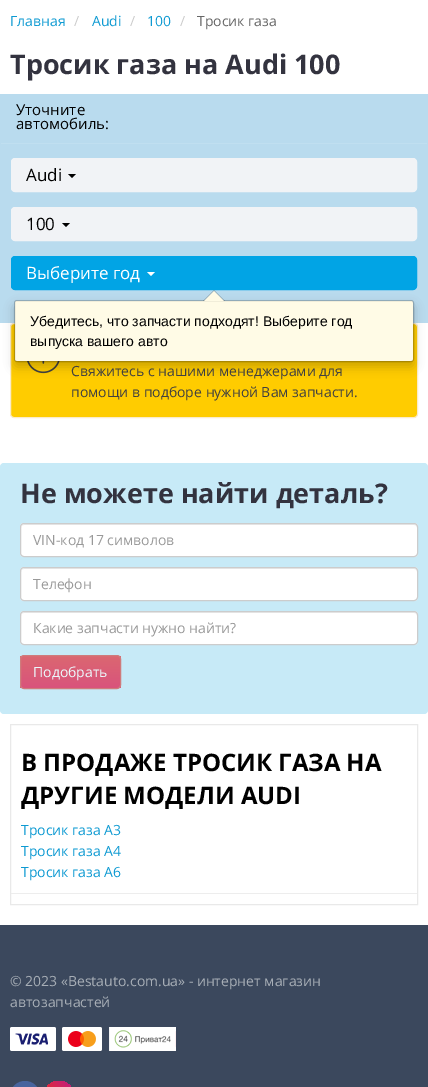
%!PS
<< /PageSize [428 1087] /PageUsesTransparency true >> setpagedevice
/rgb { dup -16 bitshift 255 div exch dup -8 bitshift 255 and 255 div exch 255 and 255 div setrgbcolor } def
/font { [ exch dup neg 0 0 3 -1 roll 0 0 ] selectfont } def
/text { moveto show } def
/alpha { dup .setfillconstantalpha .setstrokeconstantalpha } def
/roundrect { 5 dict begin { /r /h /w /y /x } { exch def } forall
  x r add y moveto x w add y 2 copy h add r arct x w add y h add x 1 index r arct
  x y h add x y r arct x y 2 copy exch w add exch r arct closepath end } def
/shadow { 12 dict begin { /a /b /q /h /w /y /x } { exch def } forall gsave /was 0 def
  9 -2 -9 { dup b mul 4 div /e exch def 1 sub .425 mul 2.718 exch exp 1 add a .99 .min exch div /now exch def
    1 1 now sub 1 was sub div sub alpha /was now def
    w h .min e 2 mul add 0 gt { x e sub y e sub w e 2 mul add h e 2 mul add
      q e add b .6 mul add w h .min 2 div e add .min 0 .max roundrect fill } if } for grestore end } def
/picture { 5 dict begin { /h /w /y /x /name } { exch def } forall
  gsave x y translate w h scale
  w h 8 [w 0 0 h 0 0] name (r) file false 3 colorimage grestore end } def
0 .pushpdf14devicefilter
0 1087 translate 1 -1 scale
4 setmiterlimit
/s1 { /OpenSans-Regular 14 font 16#0E9AD2 rgb } def
/s2 { /OpenSans-Regular 14 font 16#CCCCCC rgb } def
/s3 { /OpenSans-Regular 14 font 16#666666 rgb } def
/s4 { /OpenSans-Bold 27 font 16#33333F rgb } def
/s5 { /OpenSans-Regular 15 font 16#000000 rgb } def
/s6 { /OpenSans-Regular 17 font 16#000000 rgb } def
/s7 { /OpenSans-Regular 17 font 16#FFFFFF rgb } def
/s8 { /LiberationSans-Regular 14 font 16#000000 rgb } def
/s9 { /OpenSans-Regular 14 font 16#404040 rgb } def
/s10 { /OpenSans-Regular 14 font 16#999999 rgb } def
/s11 { /OpenSans-Regular 14 font 16#EBF8FC rgb } def
/s12 { /OpenSans-Bold 24 font 16#000000 rgb } def
/s13 { /OpenSans-Regular 14 font 16#A7AEB6 rgb } def
16#FFFFFF rgb
0 0 428 1087 rectfill
s1
(Главная) 10 26 text
s2
(/) 74 26 text
s1
(Audi) 92 26 text
s2
(/) 130 26 text
s1
(100) 147 26 text
s2
(/) 180 26 text
s3
(Тросик газа) 197 26 text
s4
(Тросик газа на Audi 100) 10 74 text
16#B9DBEE rgb
0 94 428 229 rectfill
s5
(Уточните) 16 115 text
(автомобиль:) 16 129 text
16#C0DFF0 rgb
1 143 426 1 rectfill
16#F1F3F6 rgb
11.5 158.5 405 33 3.5 roundrect gsave fill grestore
stroke
s6
(Audi) 26 181 text
68 174 moveto 76 174 lineto 72 178 lineto closepath fill
16#F1F3F6 rgb
11.5 207.5 405 33 3.5 roundrect gsave fill grestore
stroke
s6
(100) 26 230 text
62 223 moveto 70 223 lineto 66 227 lineto closepath fill
16#01A4E5 rgb
11.5 256.5 405 33 3.5 roundrect gsave fill grestore
stroke
s7
(Выберите год) 26 279 text
147 272 moveto 155 272 lineto 151 276 lineto closepath fill
16#FFCC00 rgb
10.5 323.5 407 94 3.5 roundrect gsave fill grestore
16#FAEBCC rgb
stroke
(pic1.raw) 27 361 33 13 picture
16#000000 rgb
14 305 400 62 3 5 0.2 shadow
16#FFFBE6 rgb
15 301 398 60 2 roundrect fill
0.2 alpha
16#000000 rgb
14.5 300.5 399 61 2.5 roundrect stroke
0.25 alpha
225 301 moveto 203 301 lineto 214 290 lineto closepath fill
1 alpha
16#FFFBE6 rgb
224 301 moveto 204 301 lineto 214 291 lineto closepath fill
s8
(Убедитесь, что запчасти подходят! Выберите год) 30 326 text
(выпуска вашего авто) 30 346 text
s9
(Cвяжитесь с нашими менеджерами для) 71 376 text
(помощи в подборе нужной Вам запчасти.) 71 397 text
16#C7EAF7 rgb
0 463 428 251 4 roundrect fill
s4
(Не можете найти деталь?) 20 503 text
16#FFFFFF rgb
20 523 398 34 4 roundrect fill
16#ECECEC rgb
24 525 moveto 414 525 lineto 416 525 417 526 417 528 curveto 417 526 416 524 414 524 curveto 24 524 lineto 22 525 lineto 21 528 lineto 21 526 22 525 24 525 curveto closepath fill
16#CCCCCC rgb
20.5 523.5 397 33 3.5 roundrect stroke
s10
(VIN-код 17 символов) 33 545 text
16#FFFFFF rgb
20 567 398 34 4 roundrect fill
16#ECECEC rgb
24 569 moveto 414 569 lineto 416 569 417 570 417 572 curveto 417 570 416 568 414 568 curveto 24 568 lineto 22 569 lineto 21 572 lineto 21 570 22 569 24 569 curveto closepath fill
16#CCCCCC rgb
20.5 567.5 397 33 3.5 roundrect stroke
s10
(Телефон) 33 589 text
16#FFFFFF rgb
20 611 398 34 4 roundrect fill
16#ECECEC rgb
24 613 moveto 414 613 lineto 416 613 417 614 417 616 curveto 417 614 416 612 414 612 curveto 24 612 lineto 22 613 lineto 21 616 lineto 21 614 22 613 24 613 curveto closepath fill
16#CCCCCC rgb
20.5 611.5 397 33 3.5 roundrect stroke
s10
(Какие запчасти нужно найти?) 33 633 text
gsave
20 655 101 34 4 roundrect clip newpath
gsave 20 656 moveto 121 656 lineto 121 688 lineto 20 688 lineto closepath clip newpath
<< /ShadingType 2 /ColorSpace /DeviceRGB /Coords [71 656 71 688] /Extend [true true] /Function << /FunctionType 2 /Domain [0 1] /C0 [0.859 0.404 0.443] /C1 [0.851 0.325 0.486] /N 1 >> >> shfill grestore
grestore
16#CF7B7C rgb
20.5 655.5 100 33 3.5 roundrect stroke
s11
(Подобрать) 33 677 text
16#E9E9E9 rgb
10.5 724.5 407 180 rectstroke
s12
(В ПРОДАЖЕ ТРОСИК ГАЗА НА) 21 771 text
(ДРУГИЕ МОДЕЛИ AUDI) 21 804 text
16#EDEDED rgb
11 893 406 1 rectfill
s1
(Тросик газа A3) 21 835 text
(Тросик газа A4) 21 856 text
(Тросик газа A6) 21 877 text
16#3B485D rgb
0 925 428 162 rectfill
s13
(© 2023 «Bestauto.com.ua» - интернет магазин) 10 986 text
(автозапчастей) 10 1007 text
(pic2.raw) 10 1027 166 24 picture
16#48649E rgb
10 1081 30 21 15 roundrect fill
gsave 44 1081 30 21 15 roundrect clip newpath
<< /ShadingType 2 /ColorSpace /DeviceRGB /Coords [44 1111 74 1081] /Extend [true true] /Function << /FunctionType 3 /Domain [0 1] /Functions [<< /FunctionType 2 /Domain [0 1] /C0 [0.941 0.58 0.2] /C1 [0.902 0.408 0.235] /N 1 >> << /FunctionType 2 /Domain [0 1] /C0 [0.902 0.408 0.235] /C1 [0.863 0.153 0.263] /N 1 >> << /FunctionType 2 /Domain [0 1] /C0 [0.863 0.153 0.263] /C1 [0.8 0.137 0.4] /N 1 >> << /FunctionType 2 /Domain [0 1] /C0 [0.8 0.137 0.4] /C1 [0.737 0.094 0.533] /N 1 >>] /Bounds [0.25 0.5 0.75] /Encode [0 1 0 1 0 1 0 1] >> >> shfill grestore
.poppdf14devicefilter showpage
